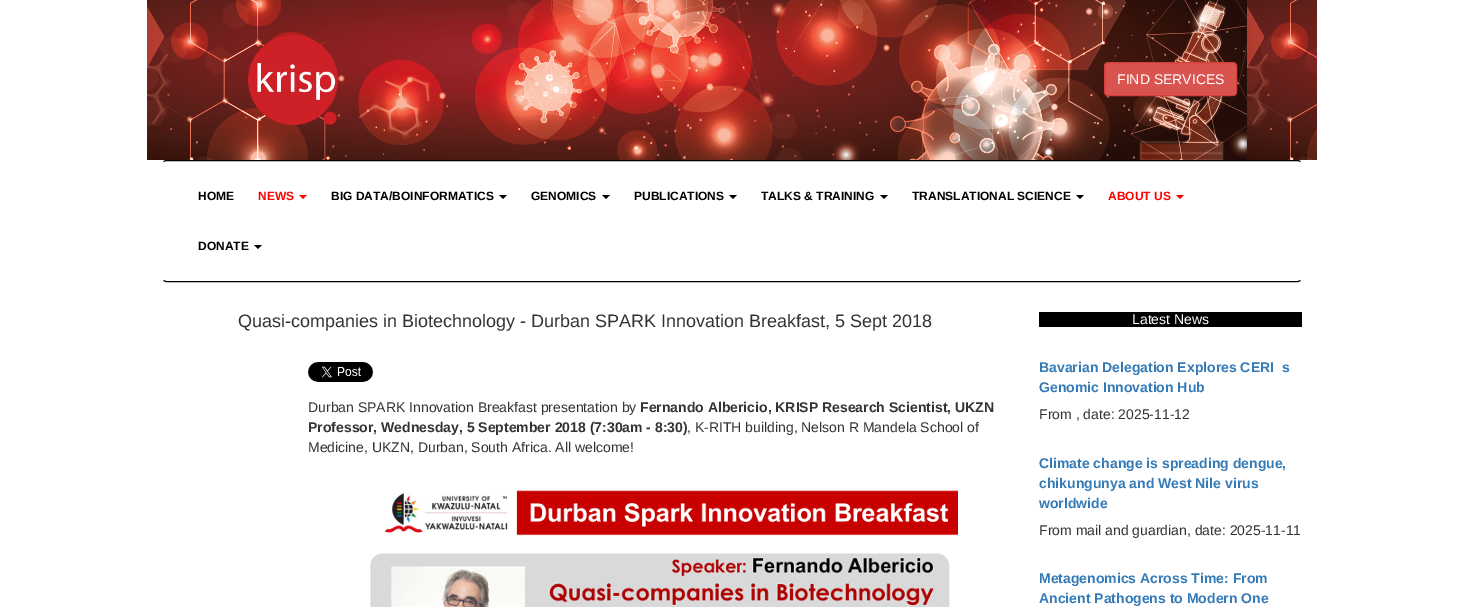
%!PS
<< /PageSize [1463 607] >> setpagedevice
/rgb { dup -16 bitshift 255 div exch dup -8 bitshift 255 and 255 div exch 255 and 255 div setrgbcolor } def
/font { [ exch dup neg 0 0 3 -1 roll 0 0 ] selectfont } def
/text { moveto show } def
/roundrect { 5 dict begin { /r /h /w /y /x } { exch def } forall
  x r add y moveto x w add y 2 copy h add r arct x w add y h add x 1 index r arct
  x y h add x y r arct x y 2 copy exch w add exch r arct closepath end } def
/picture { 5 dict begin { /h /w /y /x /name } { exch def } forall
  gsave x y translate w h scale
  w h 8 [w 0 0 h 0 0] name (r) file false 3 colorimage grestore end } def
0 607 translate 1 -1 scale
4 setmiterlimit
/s1 { /LiberationSans-Regular 14 font 16#FFFFFF rgb } def
/s2 { /LiberationSans-Bold 12 font 16#000000 rgb } def
/s3 { /LiberationSans-Bold 12 font 16#FF0000 rgb } def
/s4 { /LiberationSans-Regular 18 font 16#333333 rgb } def
/s5 { /LiberationSans-Regular 14 font 16#333333 rgb } def
/s6 { /LiberationSans-Bold 14 font 16#333333 rgb } def
/s7 { /LiberationSans-Bold 14 font 16#337AB7 rgb } def
16#FFFFFF rgb
0 0 1463 607 rectfill
(pic1.raw) 147 0 1170 160 picture
(pic2.raw) 248 35 90 90 picture
16#D9534F rgb
1104.5 62.5 132 33 3.5 roundrect gsave fill grestore
16#D43F3A rgb
stroke
s1
(FIND SERVICES) 1117 84 text
16#000000 rgb
163.5 161.5 moveto 166 160.5 lineto 1298 160.5 lineto 1300.5 161.5 lineto stroke
1300.5 280.5 moveto 1298 281.5 lineto 166 281.5 lineto 163.5 280.5 lineto stroke
s2
(HOME) 198 200 text
s3
(NEWS) 258 200 text
299 195 moveto 307 195 lineto 303 199 lineto closepath fill
s2
(BIG DATA/BOINFORMATICS) 331 200 text
499 195 moveto 507 195 lineto 503 199 lineto closepath fill
(GENOMICS) 531 200 text
602 195 moveto 610 195 lineto 606 199 lineto closepath fill
(PUBLICATIONS) 634 200 text
729 195 moveto 737 195 lineto 733 199 lineto closepath fill
(TALKS & TRAINING) 761 200 text
880 195 moveto 888 195 lineto 884 199 lineto closepath fill
(TRANSLATIONAL SCIENCE) 912 200 text
1076 195 moveto 1084 195 lineto 1080 199 lineto closepath fill
s3
(ABOUT US) 1108 200 text
1176 195 moveto 1184 195 lineto 1180 199 lineto closepath fill
s2
(DONATE) 198 250 text
254 245 moveto 262 245 lineto 258 249 lineto closepath fill
s4
(Quasi-companies in Biotechnology - Durban SPARK Innovation Breakfast, 5 Sept 2018) 238 327 text
(pic3.raw) 308 362 65 20 picture
s5
(Durban SPARK Innovation Breakfast presentation by) 308 412 text
s6
(Fernando Albericio, KRISP Research Scientist, UKZN) 640 412 text
(Professor, Wednesday, 5 September 2018 \(7:30am - 8:30\)) 308 432 text
s5
(, K-RITH building, Nelson R Mandela School of) 687 432 text
(Medicine, UKZN, Durban, South Africa. All welcome!) 308 452 text
(pic4.raw) 370 490 588 117 picture
16#000000 rgb
1039 312 263 15 rectfill
s1
(Latest News) 1132 324 text
s7
(Bavarian Delegation Explores CERI) 1039 372 text
(s) 1282 372 text
(Genomic Innovation Hub) 1039 392 text
s5
(From , date: 2025-11-12) 1039 419 text
s7
(Climate change is spreading dengue,) 1039 468 text
(chikungunya and West Nile virus) 1039 488 text
(worldwide) 1039 508 text
s5
(From mail and guardian, date: 2025-11-11) 1039 535 text
s7
(Metagenomics Across Time: From) 1039 583 text
(Ancient Pathogens to Modern One) 1039 603 text
showpage
